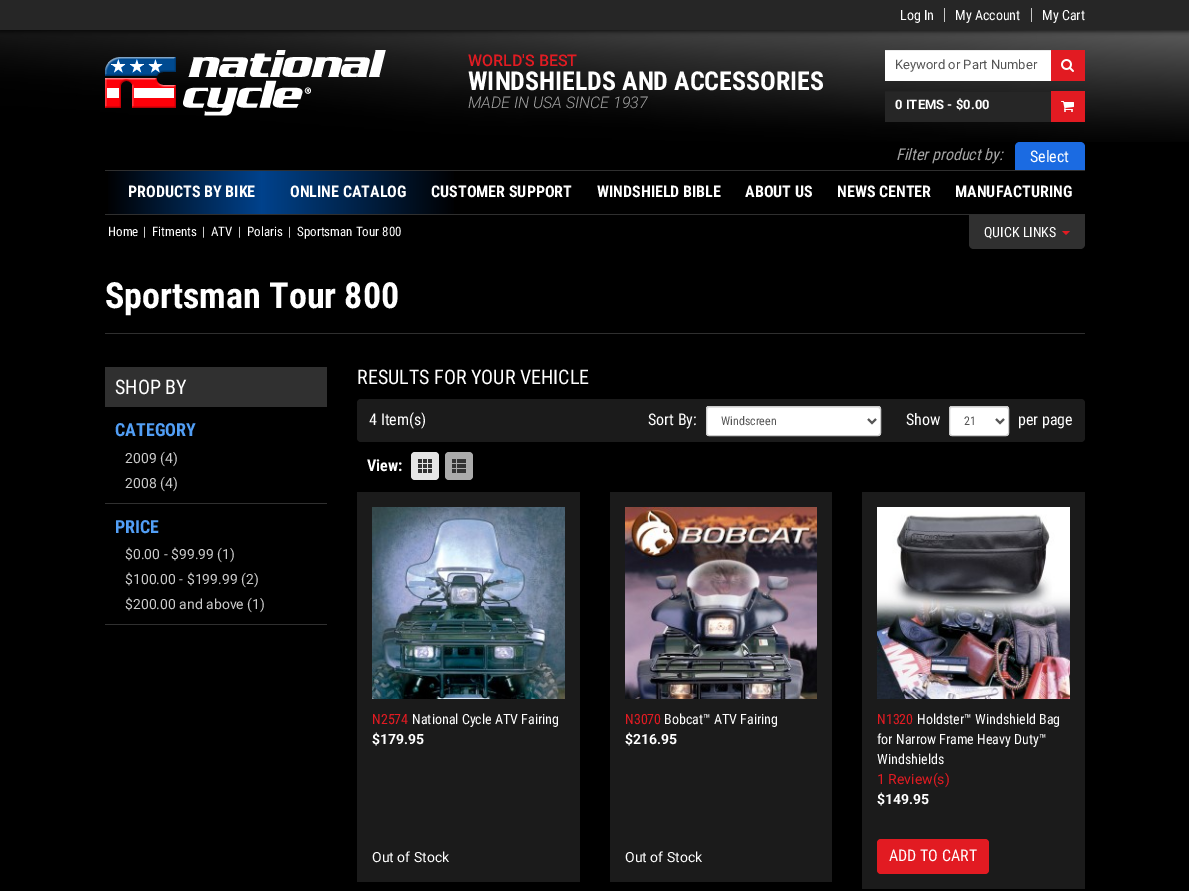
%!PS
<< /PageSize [1189 891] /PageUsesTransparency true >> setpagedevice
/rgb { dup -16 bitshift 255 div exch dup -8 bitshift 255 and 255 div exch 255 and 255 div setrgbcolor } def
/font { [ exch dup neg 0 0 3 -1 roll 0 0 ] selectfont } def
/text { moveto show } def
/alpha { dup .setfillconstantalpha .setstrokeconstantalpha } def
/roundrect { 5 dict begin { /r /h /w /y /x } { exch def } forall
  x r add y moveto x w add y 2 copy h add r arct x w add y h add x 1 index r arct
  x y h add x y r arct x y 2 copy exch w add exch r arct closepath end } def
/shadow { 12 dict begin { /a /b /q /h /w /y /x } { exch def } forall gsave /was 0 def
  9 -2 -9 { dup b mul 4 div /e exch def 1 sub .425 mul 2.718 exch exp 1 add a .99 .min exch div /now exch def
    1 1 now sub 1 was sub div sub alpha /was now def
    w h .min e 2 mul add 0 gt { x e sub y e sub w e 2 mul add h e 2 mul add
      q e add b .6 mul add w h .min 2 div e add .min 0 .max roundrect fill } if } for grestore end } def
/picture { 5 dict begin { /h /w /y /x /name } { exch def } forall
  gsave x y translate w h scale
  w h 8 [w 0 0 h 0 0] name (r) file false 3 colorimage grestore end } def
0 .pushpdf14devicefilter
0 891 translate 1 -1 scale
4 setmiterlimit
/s1 { /RobotoCondensed-Regular 14 font 16#FFFFFF rgb } def
/s2 { /Roboto-Medium 16 font 16#E21B22 rgb } def
/s3 { /RobotoCondensed-Bold 26 font 16#FFFFFF rgb } def
/s4 { /Roboto-LightItalic 16 font 16#A4A4A4 rgb } def
/s5 { /Roboto-Regular 13 font 16#555555 rgb } def
/s6 { /Roboto-Bold 13 font 16#FFFFFF rgb } def
/s7 { /RobotoCondensed-Italic 16 font 16#A4A4A4 rgb } def
/s8 { /RobotoCondensed-Regular 16 font 16#FFFFFF rgb } def
/s9 { /RobotoCondensed-Bold 16 font 16#FFFFFF rgb } def
/s10 { /RobotoCondensed-Regular 13 font 16#FFFFFF rgb } def
/s11 { /RobotoCondensed-Regular 13 font 16#CCCCCC rgb } def
/s12 { /RobotoCondensed-Bold 36 font 16#FFFFFF rgb } def
/s13 { /RobotoCondensed-Regular 20 font 16#FFFFFF rgb } def
/s14 { /RobotoCondensed-Bold 18 font 16#529FF6 rgb } def
/s15 { /Roboto-Regular 14 font 16#CCCCCC rgb } def
/s16 { /RobotoCondensed-Regular 12 font 16#555555 rgb } def
/s17 { /RobotoCondensed-Regular 14 font 16#E21B22 rgb } def
/s18 { /Roboto-Bold 14 font 16#FFFFFF rgb } def
/s19 { /Roboto-Regular 14 font 16#FFFFFF rgb } def
/s20 { /Roboto-Regular 14 font 16#E21B22 rgb } def
16#000000 rgb
0 0 1189 891 rectfill
(pic1.raw) 0 30 1189 112 picture
0 1 1189 30 0 2.5 0.75 shadow
16#262626 rgb
0 0 1189 30 rectfill
16#C9C9C9 rgb
944 8 1 14 rectfill
s1
(Log In) 900 20 text
16#C9C9C9 rgb
1031 8 1 14 rectfill
s1
(My Account) 955 20 text
(My Cart) 1042 20 text
(pic2.raw) 105 50 281 66 picture
s2
(WORLD'S BEST) 468 66 text
s3
(WINDSHIELDS AND ACCESSORIES) 468 90 text
s4
(MADE IN USA SINCE 1937) 468 108 text
16#FFFFFF rgb
885 51 166 30 rectfill
16#ECECEC rgb
885 50 166 1 rectfill
s5
(Keyword or Part Number) 895 69 text
16#E21B22 rgb
1051 50 34 31 rectfill
(pic3.raw) 1061 59 13 13 picture
16#262626 rgb
885 92 166 30 rectfill
16#232323 rgb
885 91 75 1 rectfill
s6
(0 ITEMS - $0.00) 895 109 text
16#E21B22 rgb
1051 91 34 31 rectfill
(pic4.raw) 1061 101 13 11 picture
s7
(Filter product by:) 896 160 text
16#1B6BE2 rgb
1020 142 moveto 1080 142 lineto 1083 142 1085 144 1085 147 curveto 1085 170 lineto 1015 170 lineto 1015 147 lineto 1015 144 1017 142 1020 142 curveto closepath fill
s8
(Select) 1030 162 text
16#2F2F2F rgb
105 170 980 1 rectfill
105 214 980 1 rectfill
gsave 108 171 moveto 454 171 lineto 454 214 lineto 108 214 lineto closepath clip newpath
<< /ShadingType 2 /ColorSpace /DeviceRGB /Coords [105 193 1085 192] /Extend [true true] /Function << /FunctionType 3 /Domain [0 1] /Functions [<< /FunctionType 2 /Domain [0 1] /C0 [0 0 0] /C1 [0 0.259 0.549] /N 1 >> << /FunctionType 2 /Domain [0 1] /C0 [0 0.259 0.549] /C1 [0 0 0] /N 1 >> << /FunctionType 2 /Domain [0 1] /C0 [0 0 0] /C1 [0 0 0] /N 1 >>] /Bounds [0.16 0.36] /Encode [0 1 0 1 0 1] >> >> shfill grestore
s9
(PRODUCTS BY BIKE) 128 197 text
(ONLINE CATALOG) 290 197 text
(CUSTOMER SUPPORT) 431 197 text
(WINDSHIELD BIBLE) 597 197 text
(ABOUT US) 745 197 text
(NEWS CENTER) 837 197 text
(MANUFACTURING) 955 197 text
s10
(Home) 108 236 text
s11
(|) 143 236 text
s10
(Fitments) 152 236 text
s11
(|) 202 236 text
s10
(ATV) 211 236 text
s11
(|) 238 236 text
s10
(Polaris) 247 236 text
s11
(|) 288 236 text
s10
(Sportsman Tour 800) 297 236 text
16#2F2F2F rgb
105 333 980 1 rectfill
s12
(Sportsman Tour 800) 105 308 text
16#303030 rgb
105 367 222 40 rectfill
s13
(SHOP BY) 115 394 text
s14
(CATEGORY) 115 436 text
16#303030 rgb
105 503 222 1 rectfill
s15
(2009 \(4\)) 125 463 text
(2008 \(4\)) 125 488 text
s14
(PRICE) 115 533 text
16#303030 rgb
105 624 222 1 rectfill
s15
($0.00 - $99.99 \(1\)) 125 559 text
($100.00 - $199.99 \(2\)) 125 584 text
($200.00 and above \(1\)) 125 609 text
s13
(RESULTS FOR YOUR VEHICLE) 357 384 text
16#1B1B1B rgb
357 399 728 43 4 roundrect fill
s8
(4 Item\(s\)) 369 425 text
(Sort By:) 648 425 text
706 406 175 30 3 roundrect fill
16#ECECEC rgb
709 408 moveto 878 408 lineto 879 408 880 409 880 410 curveto 880 409 880 407 878 407 curveto 708 407 lineto 707 408 707 409 707 410 curveto 707 409 708 408 709 408 curveto closepath fill
16#CCCCCC rgb
706.5 406.5 174 29 2.5 roundrect stroke
16#555555 rgb
2 setlinewidth
868 419 moveto 872 423 lineto 876 419 lineto stroke
s16
(Windscreen) 721 425 text
s8
(Show) 906 425 text
949 406 60 30 3 roundrect fill
16#ECECEC rgb
952 408 moveto 1006 408 lineto 1007 408 1008 409 1008 410 curveto 1008 405 1001 407 997 407 curveto 961 407 lineto 957 407 950 405 950 410 curveto 950 409 951 408 952 408 curveto closepath fill
16#CCCCCC rgb
1 setlinewidth
949.5 406.5 59 29 2.5 roundrect stroke
16#555555 rgb
2 setlinewidth
996 419 moveto 1000 423 lineto 1004 419 lineto stroke
s16
(21) 964 425 text
s8
(per page) 1018 425 text
s9
(View:) 367 471 text
16#E5E5E5 rgb
411 452 28 28 4 roundrect fill
(pic5.raw) 418 459 14 14 picture
16#ABABAB rgb
445 452 28 28 4 roundrect fill
(pic6.raw) 452 459 14 14 picture
16#1B1B1B rgb
357 492 223 390 rectfill
(pic7.raw) 372 507 193 192 picture
s17
(N2574) 372 724 text
s1
(National Cycle ATV Fairing) 412 724 text
s18
($179.95) 372 744 text
s19
(Out of Stock) 372 862 text
16#1B1B1B rgb
610 492 222 390 rectfill
(pic8.raw) 625 507 192 192 picture
s17
(N3070) 625 724 text
s1
(Bobcat™ ATV Fairing) 664 724 text
s18
($216.95) 625 744 text
s19
(Out of Stock) 625 862 text
16#1B1B1B rgb
862 492 223 397 rectfill
(pic9.raw) 877 507 193 192 picture
s17
(N1320) 877 724 text
s1
(Holdster™ Windshield Bag) 917 724 text
(for Narrow Frame Heavy Duty™) 877 744 text
(Windshields) 877 764 text
s20
(1 Review\(s\)) 877 784 text
s18
($149.95) 877 804 text
16#E21B22 rgb
877 839 112 35 4 roundrect fill
s8
(ADD TO CART) 889 861 text
16#303030 rgb
969 215 moveto 1085 215 lineto 1085 244 lineto 1085 247 1083 249 1080 249 curveto 974 249 lineto 971 249 969 247 969 244 curveto closepath fill
s1
(QUICK LINKS) 984 237 text
16#E21B22 rgb
1062 231 moveto 1070 231 lineto 1066 235 lineto closepath fill
.poppdf14devicefilter showpage
